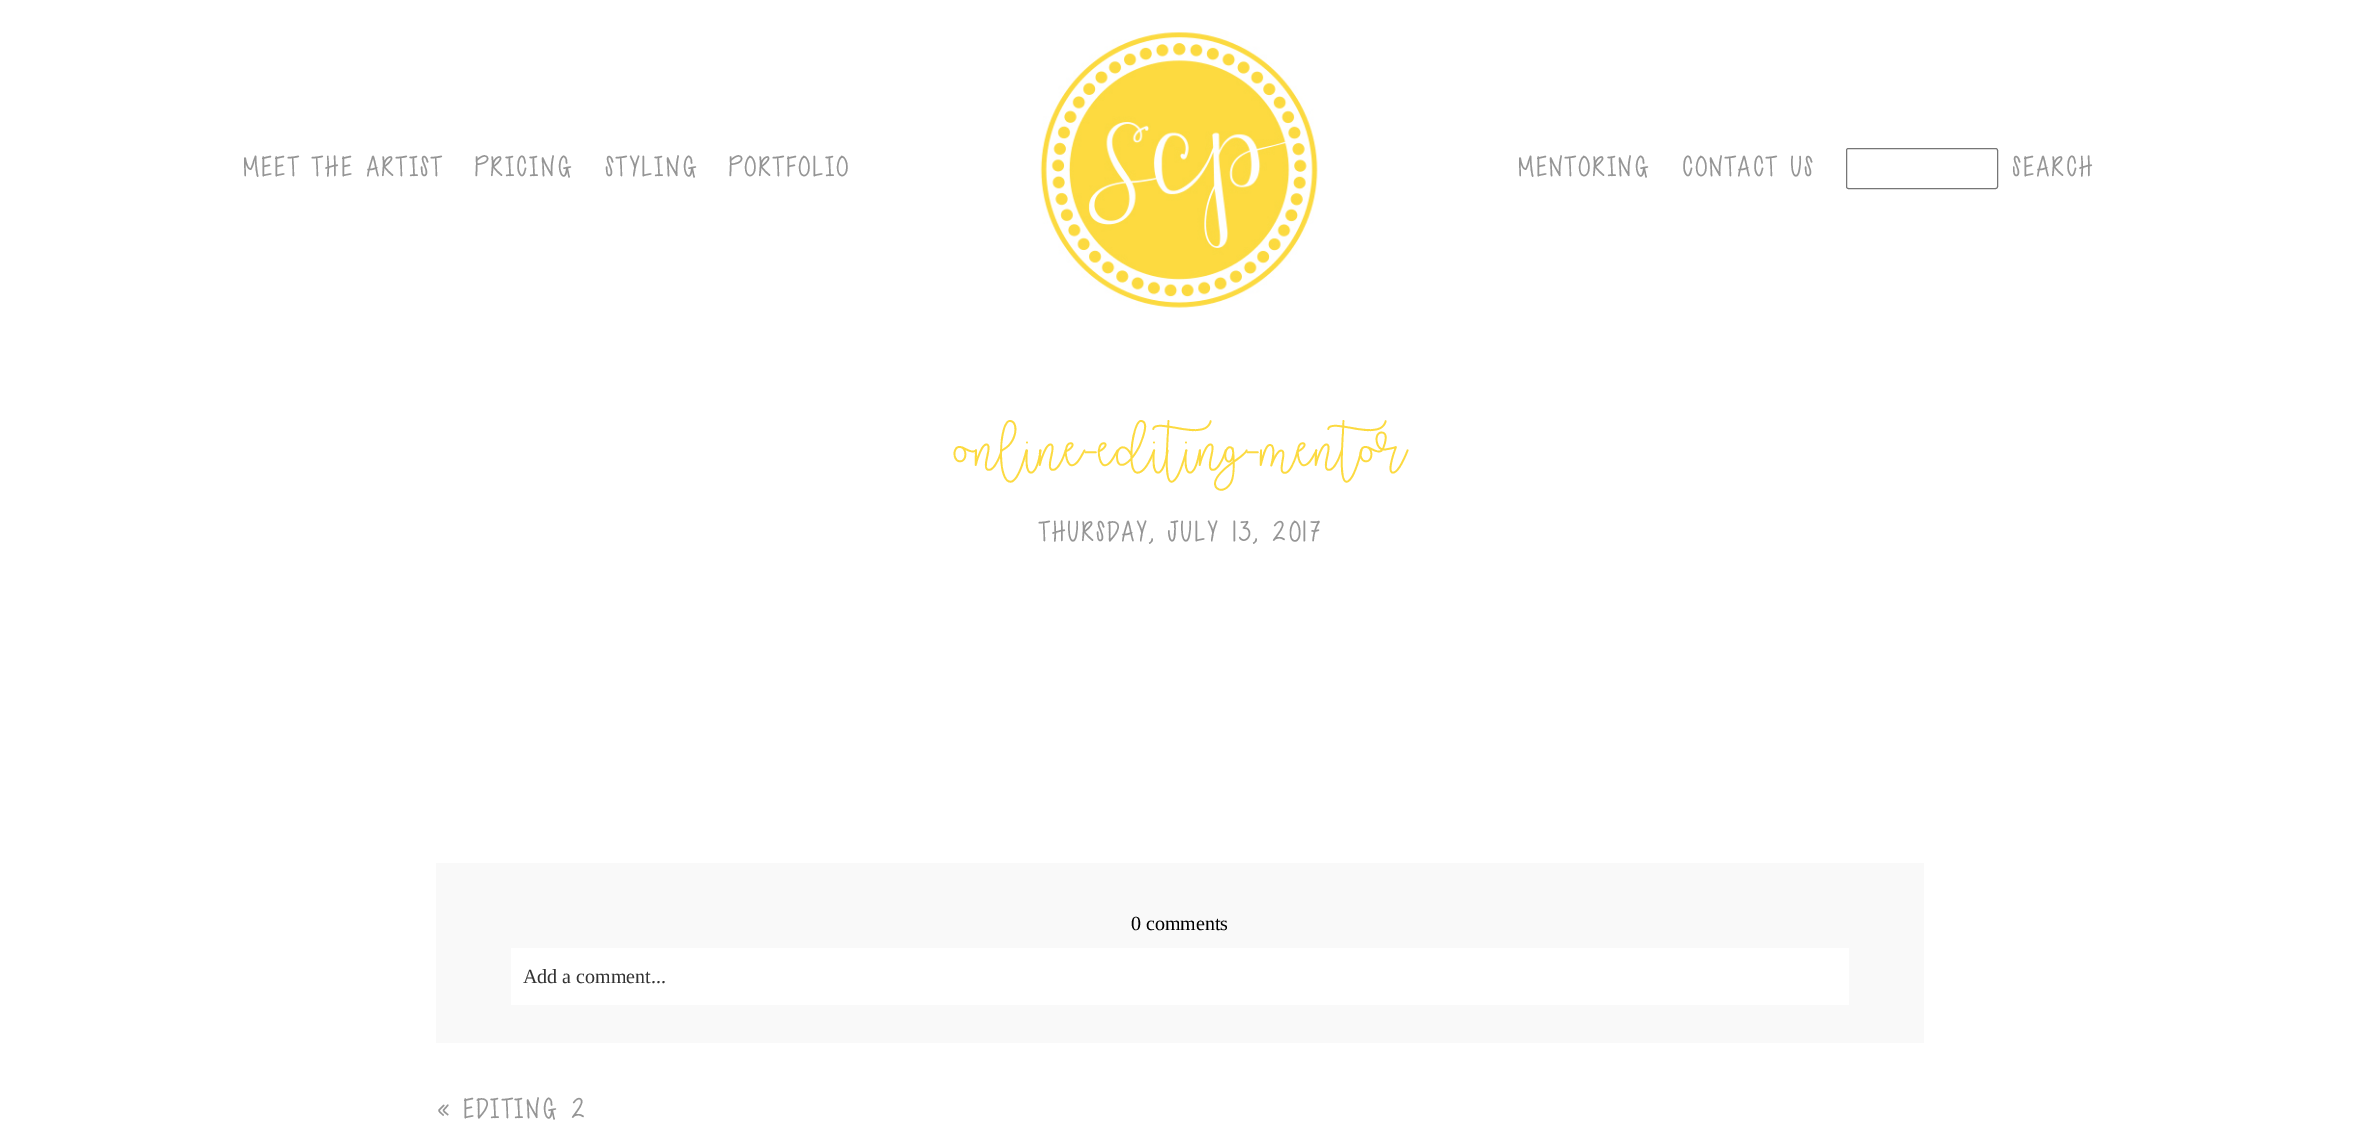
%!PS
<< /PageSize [2359 1125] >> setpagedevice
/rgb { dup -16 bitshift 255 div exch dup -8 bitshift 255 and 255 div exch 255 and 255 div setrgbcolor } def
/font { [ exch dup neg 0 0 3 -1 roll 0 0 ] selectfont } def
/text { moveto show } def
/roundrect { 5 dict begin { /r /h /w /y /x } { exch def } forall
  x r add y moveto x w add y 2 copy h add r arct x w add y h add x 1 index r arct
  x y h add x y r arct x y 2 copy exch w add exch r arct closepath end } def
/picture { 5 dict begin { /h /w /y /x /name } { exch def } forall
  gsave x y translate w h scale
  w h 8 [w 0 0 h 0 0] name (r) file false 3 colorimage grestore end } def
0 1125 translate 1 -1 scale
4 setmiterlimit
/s1 { /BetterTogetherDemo-Regular 50 font 16#FCDA40 rgb } def
/s2 { /LiberationSerif-Regular 20 font 16#000000 rgb } def
/s3 { /LiberationSerif-Regular 20 font 16#333333 rgb } def
16#FFFFFF rgb
0 0 2359 1125 rectfill
/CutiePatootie-Medium 28.75 font
16#959595 rgb
243 176 moveto 1 0 32 2.6 0 (MEET THE ARTIST) awidthshow
475 176 moveto 2.6 0 (PRICING) ashow
605 176 moveto 2.6 0 (STYLING) ashow
729 176 moveto 2.6 0 (PORTFOLIO) ashow
(pic1.raw) 1040 32 278 276 picture
1518 176 moveto 2.6 0 (MENTORING) ashow
1682 176 moveto 1 0 32 2.6 0 (CONTACT US) awidthshow
16#767676 rgb
1846.5 148.5 151 40 2 roundrect stroke
gsave
2013 151 82 34 rectclip
16#959595 rgb
2012 176 moveto 2.6 0 (SEARCH) ashow
grestore
s1
(online-editing-mentor) 954 466 text
/CutiePatootie-Medium 28.75 font
16#959595 rgb
1039 541 moveto 1 0 32 2.6 0 (THURSDAY, JULY 13, 2017) awidthshow
16#F9F9F9 rgb
436 863 1488 180 rectfill
s2
(0 comments) 1131 930 text
16#FFFFFF rgb
511 948 1338 57 rectfill
s3
(Add a comment...) 523 983 text
/CutiePatootie-Medium 28.75 font
16#959595 rgb
437 1118 moveto 2.6 0 («) ashow
463 1118 moveto 1 0 32 2.6 0 (EDITING 2) awidthshow
showpage
